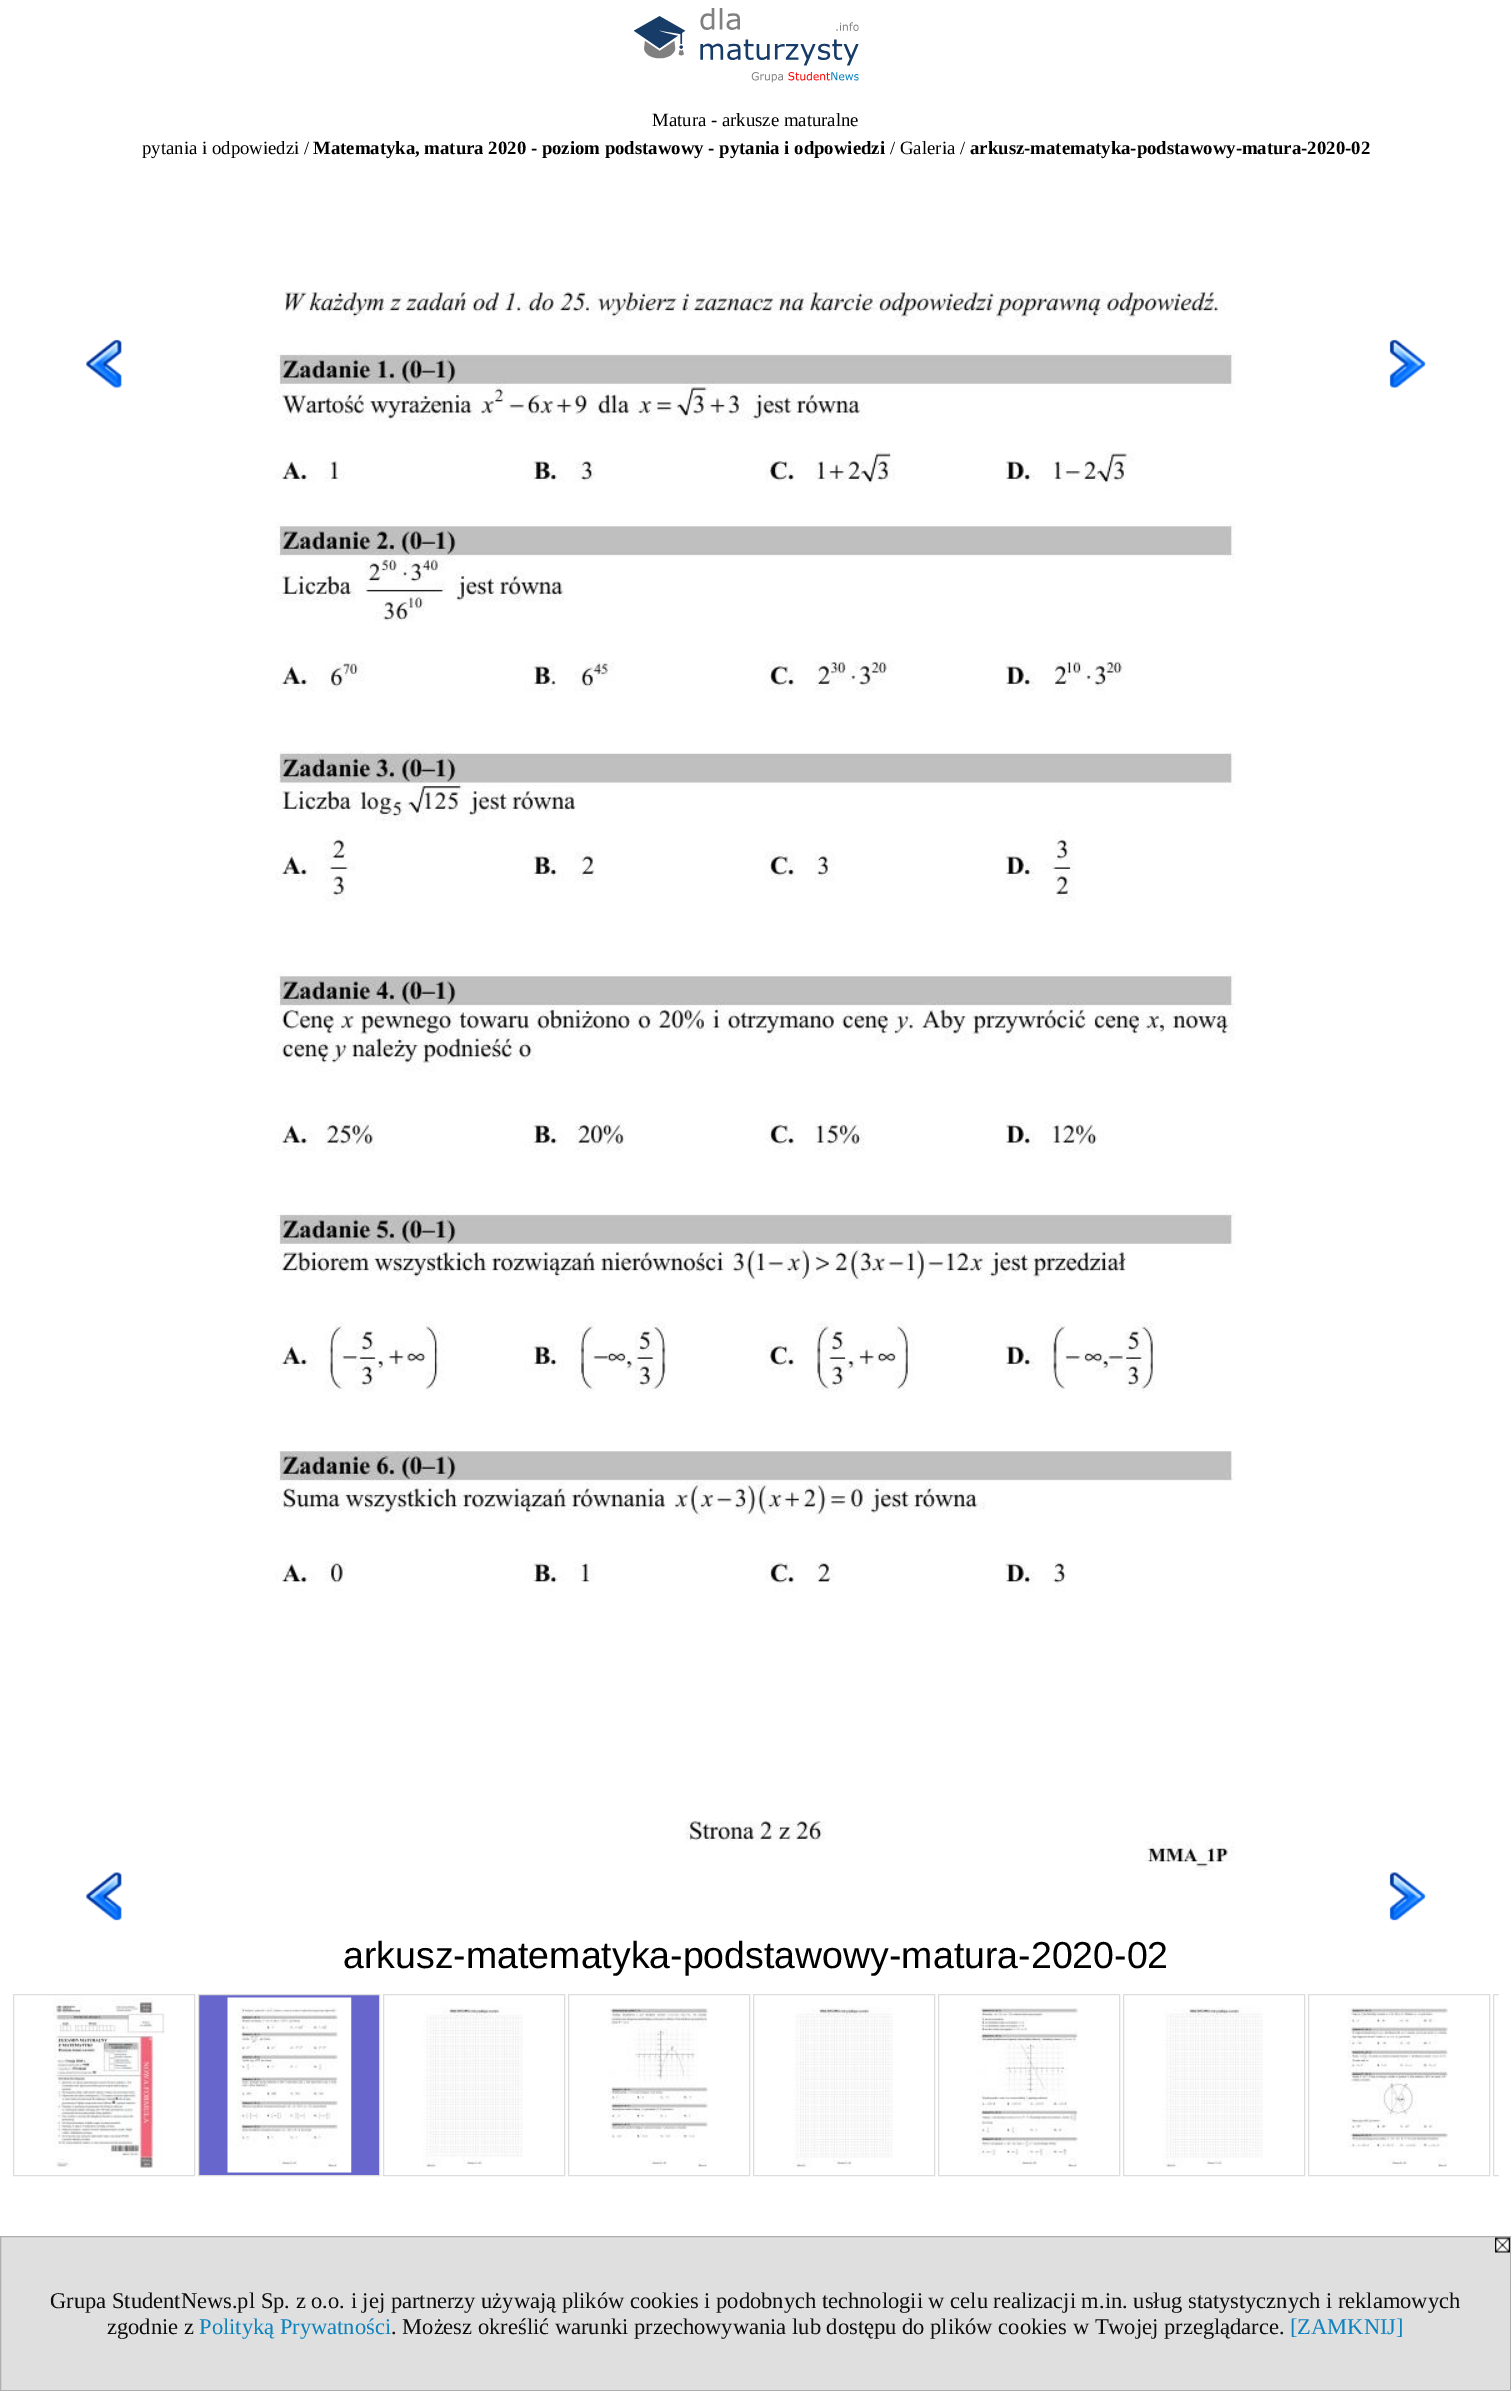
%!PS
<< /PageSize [1511 2391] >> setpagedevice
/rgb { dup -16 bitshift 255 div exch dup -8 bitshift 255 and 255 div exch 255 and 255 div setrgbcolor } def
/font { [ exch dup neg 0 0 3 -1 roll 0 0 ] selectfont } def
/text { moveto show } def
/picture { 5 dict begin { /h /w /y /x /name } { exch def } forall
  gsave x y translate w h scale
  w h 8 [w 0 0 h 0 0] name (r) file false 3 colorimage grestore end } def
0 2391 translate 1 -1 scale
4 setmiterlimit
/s1 { /LiberationSerif-Regular 18.75 font 16#000000 rgb } def
/s2 { /LiberationSerif-Bold 18.75 font 16#000000 rgb } def
/s3 { /LiberationSans-Regular 37.5 font 16#000000 rgb } def
/s4 { /LiberationSerif-Regular 22.5 font 16#0D0D0D rgb } def
/s5 { /LiberationSerif-Regular 22.5 font 16#0D82BD rgb } def
16#FFFFFF rgb
0 0 1511 2391 rectfill
(pic1.raw) 634 8 225 75 picture
s1
(Matura - arkusze maturalne) 652 126 text
(pytania i odpowiedzi /) 142 154 text
s2
(Matematyka, matura 2020 - poziom podstawowy - pytania i odpowiedzi) 313 154 text
s1
(/ Galeria /) 890 154 text
s2
(arkusz-matematyka-podstawowy-matura-2020-02) 970 154 text
(pic2.raw) 86 339 36 49 picture
(pic3.raw) 275 291 960 1580 picture
(pic4.raw) 1389 339 37 49 picture
(pic5.raw) 86 1872 36 49 picture
(pic6.raw) 1389 1872 37 49 picture
s3
(arkusz-matematyka-podstawowy-matura-2020-02) 343 1968 text
16#DDDDDD rgb
13.5 1994.5 181 181 rectstroke
(pic7.raw) 53 1997 112 171 picture
16#6666CC rgb
198.5 1994.5 moveto 379.5 1994.5 lineto 379.5 2175.5 lineto 198.5 2175.5 lineto closepath gsave fill grestore
16#DDDDDD rgb
stroke
(pic8.raw) 227 1997 125 176 picture
383.5 1994.5 181 181 rectstroke
(pic9.raw) 423 2007 100 161 picture
568.5 1994.5 181 181 rectstroke
(pic10.raw) 608 2008 100 159 picture
753.5 1994.5 181 181 rectstroke
(pic11.raw) 793 2007 100 161 picture
938.5 1994.5 181 181 rectstroke
(pic12.raw) 977 2007 101 160 picture
1123.5 1994.5 181 181 rectstroke
(pic13.raw) 1163 2007 100 161 picture
1308.5 1994.5 181 181 rectstroke
(pic14.raw) 1347 2007 101 160 picture
gsave
13 1990 1486 189 rectclip
1493.5 1994.5 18 181 rectstroke
grestore
16#DFDFDF rgb
0.5 2236.5 moveto 1510.5 2236.5 lineto 1510.5 2390.5 lineto 0.5 2390.5 lineto closepath gsave fill grestore
16#AEAEAE rgb
stroke
(pic15.raw) 1495 2237 15 16 picture
s4
(Grupa StudentNews.pl Sp. z o.o. i jej partnerzy używają plików cookies i podobnych technologii w celu realizacji m.in. usług statystycznych i reklamowych) 50 2308 text
(zgodnie z) 107 2334 text
s5
(Polityką Prywatności) 199 2334 text
s4
(. Możesz określić warunki przechowywania lub dostępu do plików cookies w Twojej przeglądarce.) 391 2334 text
s5
([ZAMKNIJ]) 1290 2334 text
showpage
